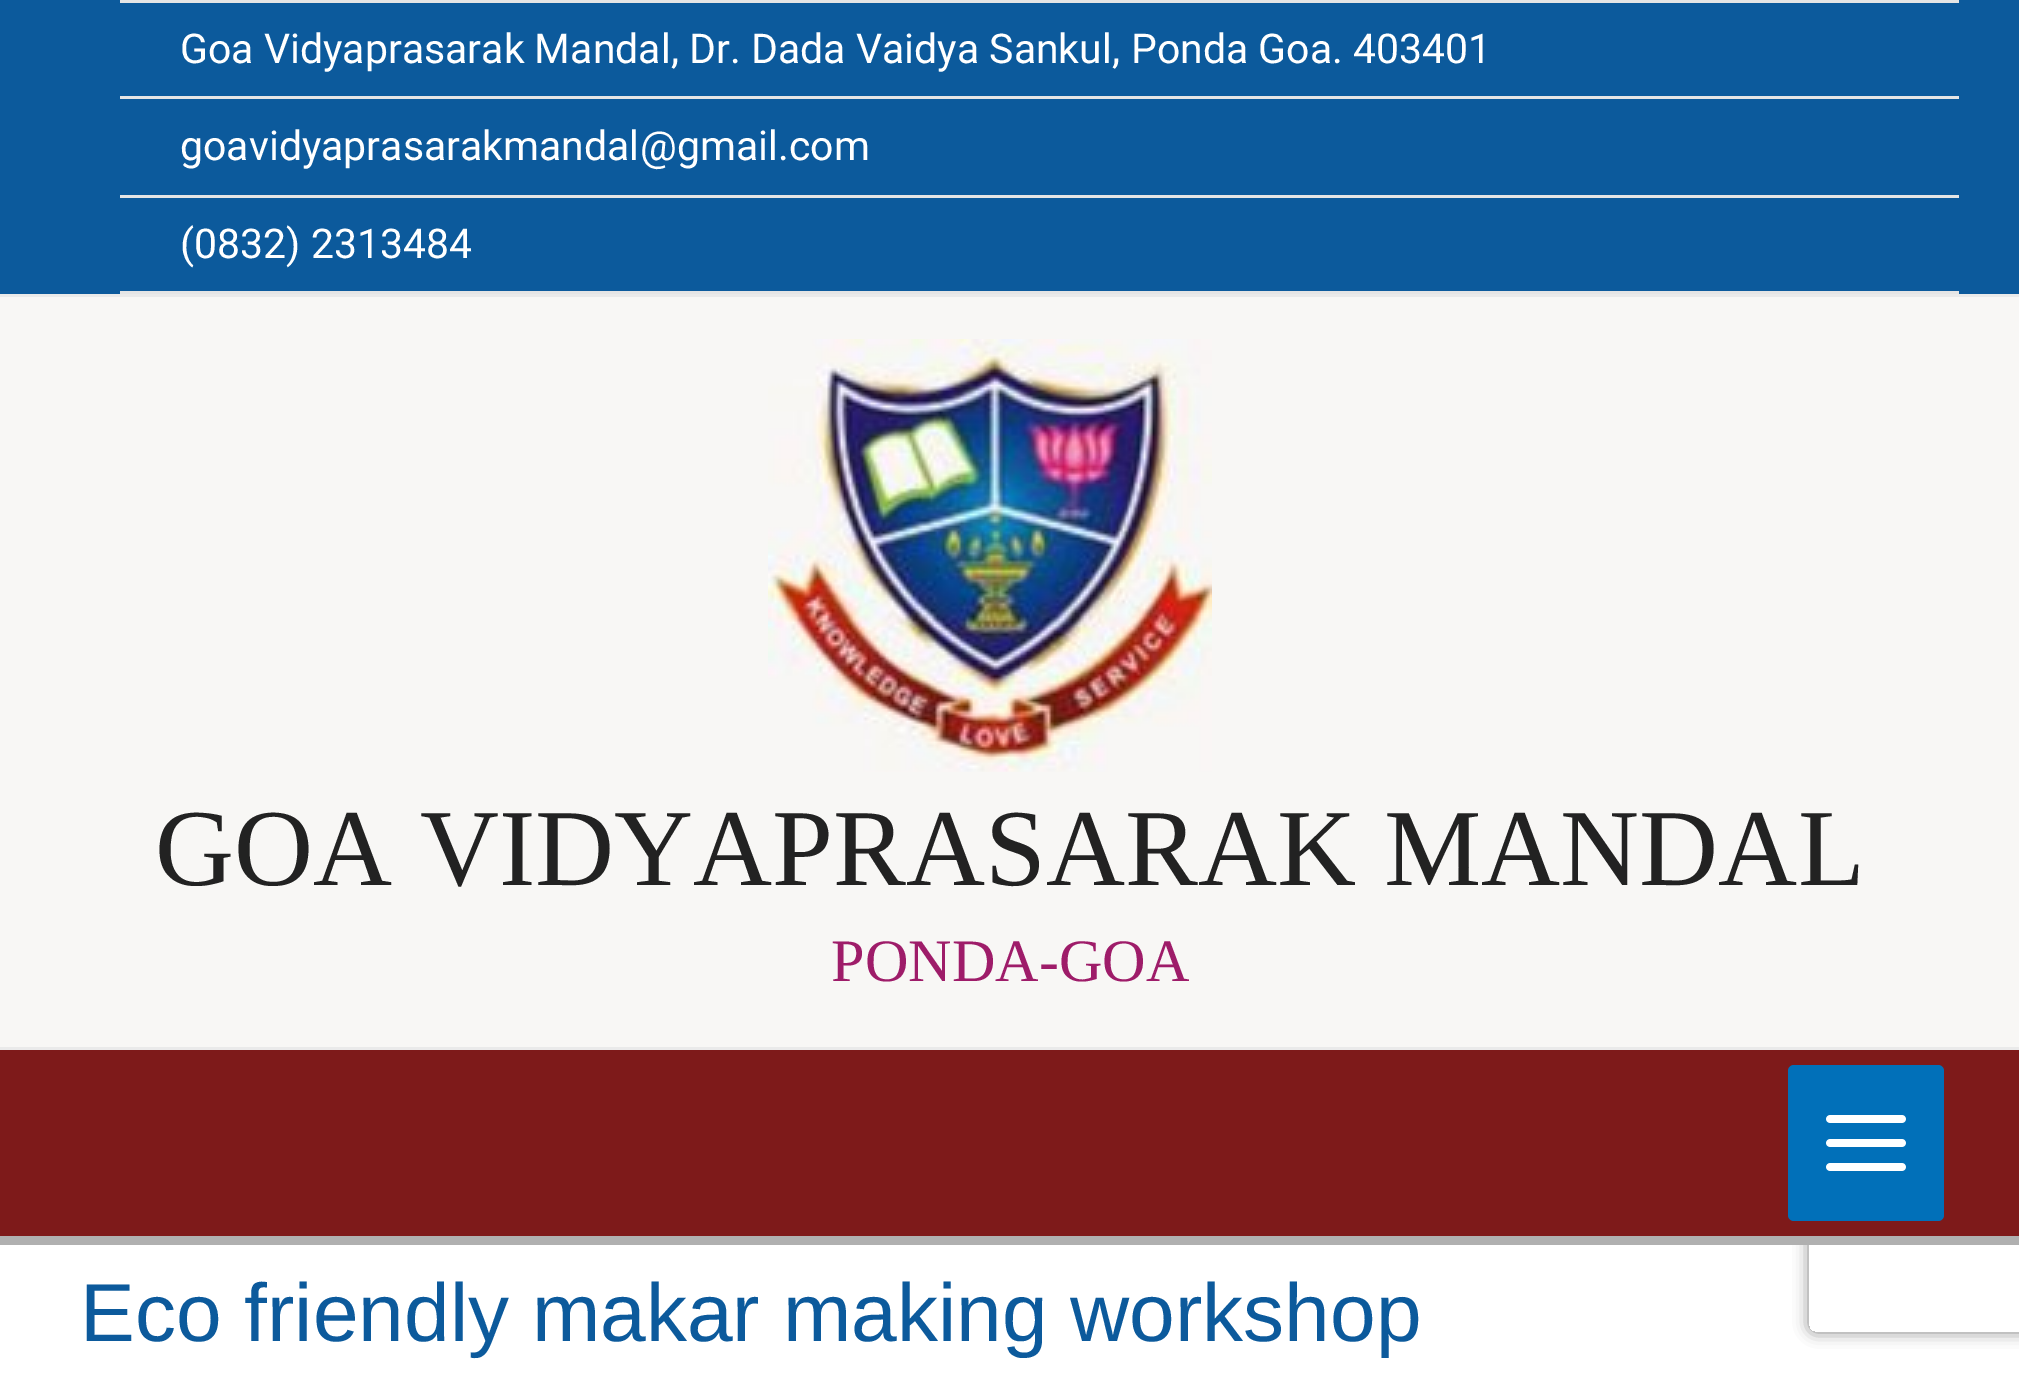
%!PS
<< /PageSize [2019 1374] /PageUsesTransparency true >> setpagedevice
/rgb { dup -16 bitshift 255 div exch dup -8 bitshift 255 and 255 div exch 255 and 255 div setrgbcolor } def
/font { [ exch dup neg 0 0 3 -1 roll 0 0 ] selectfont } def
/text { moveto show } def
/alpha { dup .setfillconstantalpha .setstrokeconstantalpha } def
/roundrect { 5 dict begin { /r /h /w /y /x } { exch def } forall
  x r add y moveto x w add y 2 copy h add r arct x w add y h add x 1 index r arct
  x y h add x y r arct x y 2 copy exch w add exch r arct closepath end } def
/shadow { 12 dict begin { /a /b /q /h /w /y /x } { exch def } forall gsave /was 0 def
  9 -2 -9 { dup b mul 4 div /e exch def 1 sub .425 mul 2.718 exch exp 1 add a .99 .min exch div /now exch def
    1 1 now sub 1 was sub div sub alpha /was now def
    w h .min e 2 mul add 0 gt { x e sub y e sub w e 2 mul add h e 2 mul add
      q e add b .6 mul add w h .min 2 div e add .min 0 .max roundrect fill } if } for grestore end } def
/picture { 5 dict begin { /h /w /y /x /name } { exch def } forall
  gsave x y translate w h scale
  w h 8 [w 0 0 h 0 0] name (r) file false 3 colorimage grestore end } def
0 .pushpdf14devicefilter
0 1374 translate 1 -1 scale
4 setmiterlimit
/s1 { /Roboto-Regular 41 font 16#FFFFFF rgb } def
/s2 { /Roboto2-Regular 41 font 16#FFFFFF rgb } def
/s3 { /LiberationSerif-Regular 109.5 font 16#222222 rgb } def
/s4 { /LiberationSerif-Regular 60.25 font 16#9E1C69 rgb } def
/s5 { /LiberationSans-Regular 82.1 font 16#0C5A9C rgb } def
16#FFFFFF rgb
0 0 2019 1374 rectfill
16#0C5A9C rgb
0 0 2019 294 rectfill
16#EAEAEA rgb
0 294 2019 3 rectfill
16#E5E5E5 rgb
120 0 1839 3 rectfill
120 96 1839 3 rectfill
s1
(Goa Vidyaprasarak Mandal) 180 63 text
s2
(,) 671 63 text
s1
(Dr) 689 63 text
s2
(.) 730 63 text
s1
(Dada Vaidya Sankul) 751 63 text
s2
(,) 1112 63 text
s1
(Ponda Goa) 1131 63 text
s2
(.) 1332 63 text
s1
(403401) 1353 63 text
16#E5E5E5 rgb
120 195 1839 3 rectfill
s1
(goavidyaprasarakmandal) 180 160 text
s2
(@) 640 160 text
s1
(gmail) 677 160 text
s2
(.) 778 160 text
s1
(com) 789 160 text
16#E5E5E5 rgb
120 291 1839 3 rectfill
s2
(\() 180 258 text
s1
(0832) 194 258 text
s2
(\)) 286 258 text
s1
(2313484) 311 258 text
16#F8F7F5 rgb
0 297 2019 750 rectfill
16#EAEAEA rgb
0 1047 2019 3 rectfill
(pic1.raw) 768 339 444 433 picture
s3
(GOA VIDYAPRASARAK MANDAL) 155 885 text
s4
(PONDA-GOA) 831 981 text
gsave
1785 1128 moveto 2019 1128 lineto 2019 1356 lineto 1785 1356 lineto closepath 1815 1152 moveto 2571 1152 lineto 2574.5 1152 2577 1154.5 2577 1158 curveto 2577 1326 lineto 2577 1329.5 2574.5 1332 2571 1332 curveto 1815 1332 lineto 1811.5 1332 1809 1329.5 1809 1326 curveto 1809 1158 lineto 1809 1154.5 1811.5 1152 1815 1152 curveto closepath eoclip newpath
16#808080 rgb
1809 1152 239 180 6 7.5 1 shadow
grestore
16#7E1A1A rgb
0 1050 2019 186 rectfill
16#B0B0B0 rgb
0 1236 2019 9 rectfill
16#0170B9 rgb
1788 1065 156 156 6 roundrect fill
(pic2.raw) 1826 1115 80 56 picture
s5
(Eco friendly makar making workshop) 80 1341 text
.poppdf14devicefilter showpage
